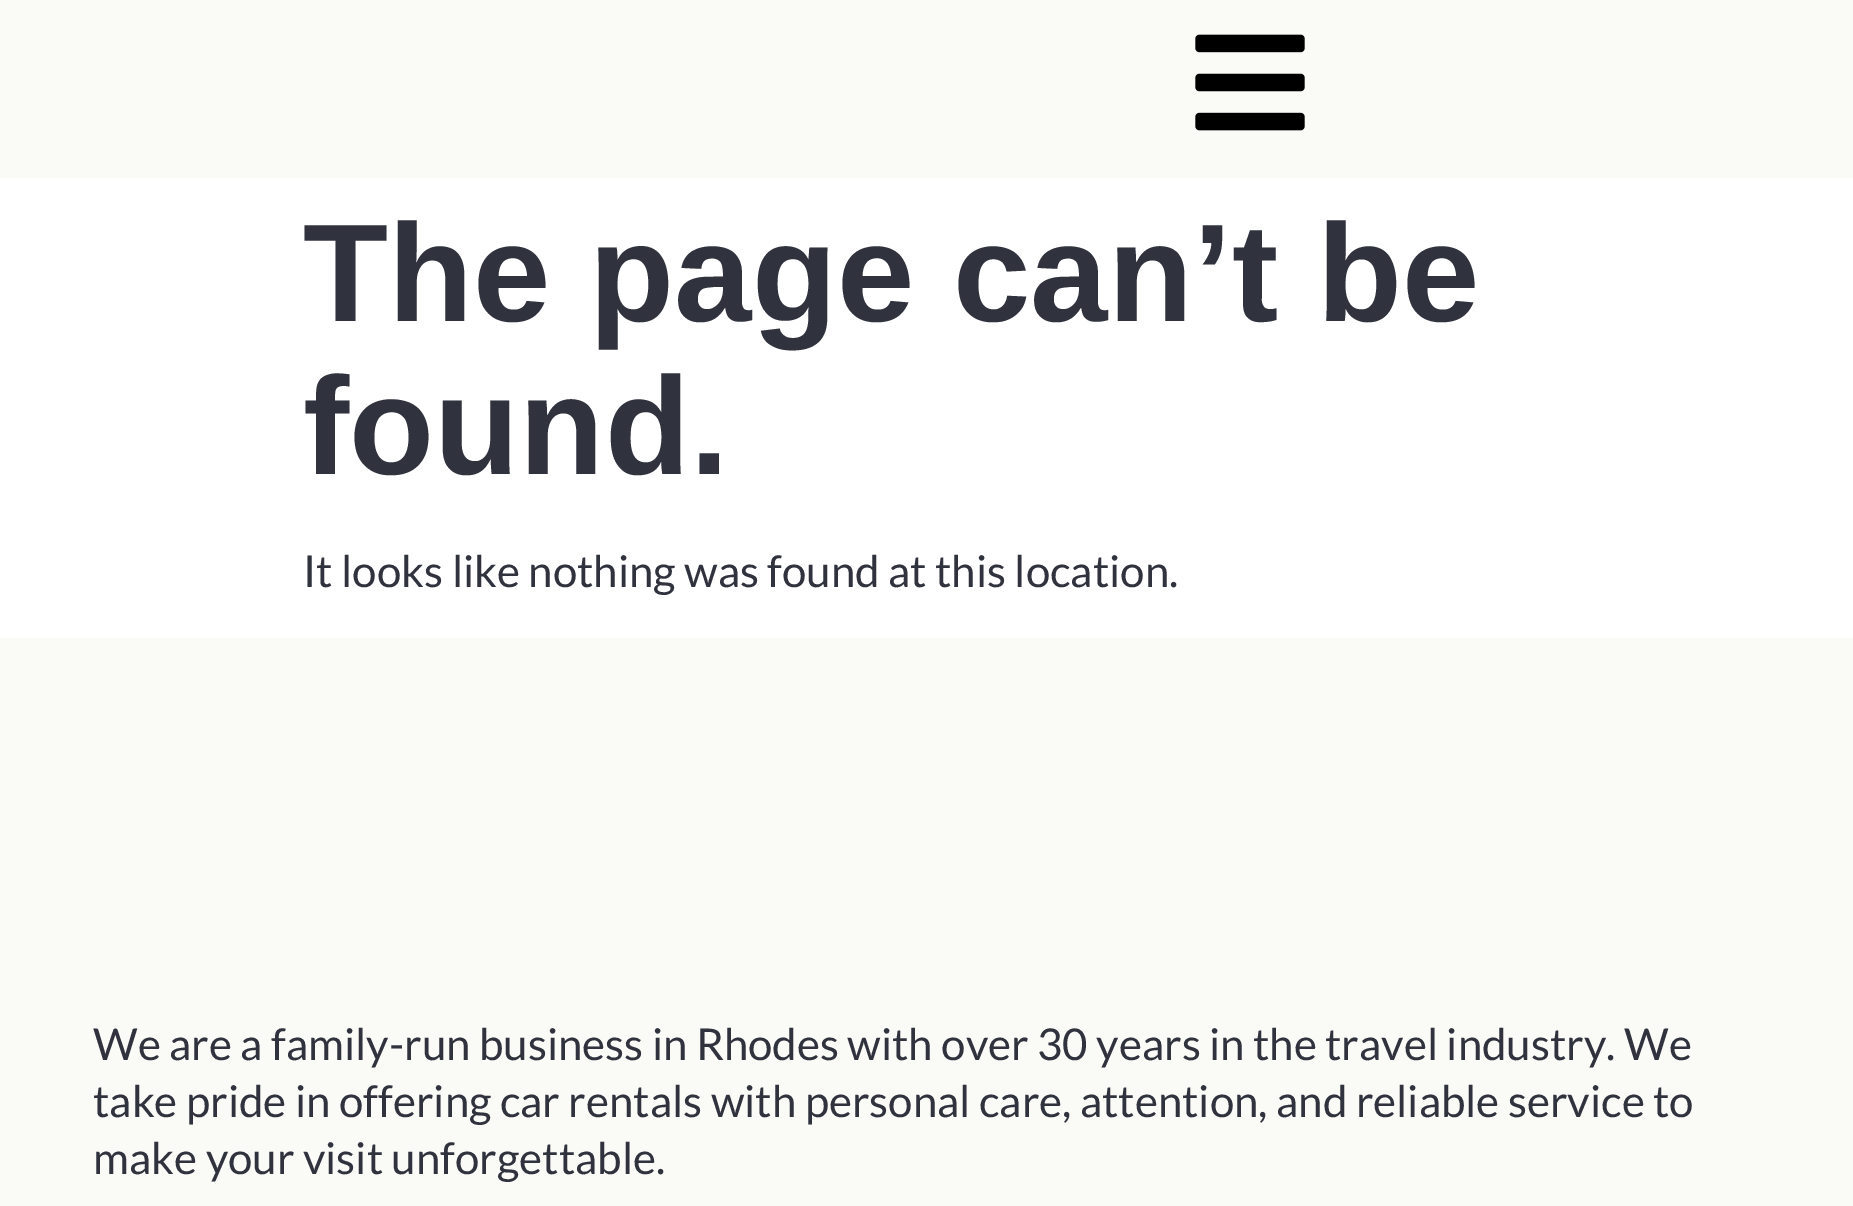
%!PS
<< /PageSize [1853 1206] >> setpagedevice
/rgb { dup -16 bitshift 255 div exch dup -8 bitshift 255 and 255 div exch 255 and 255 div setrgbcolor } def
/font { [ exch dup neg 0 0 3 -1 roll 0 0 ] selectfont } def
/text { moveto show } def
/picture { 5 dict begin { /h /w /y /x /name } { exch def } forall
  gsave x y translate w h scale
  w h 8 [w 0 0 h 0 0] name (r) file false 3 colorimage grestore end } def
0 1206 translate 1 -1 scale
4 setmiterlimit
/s1 { /LiberationSans-Bold 139.25 font 16#30323D rgb } def
/s2 { /Lato-Regular 43.8 font 16#30323D rgb } def
16#FFFFFF rgb
0 0 1853 1206 rectfill
16#FAFAF7 rgb
0 0 1853 178 rectfill
(pic1.raw) 1195 34 110 97 picture
s1
(The page can’t be) 303 321 text
(found.) 303 474 text
s2
(It looks like nothing was found at this location.) 303 587 text
16#FAFAF7 rgb
0 638 1853 568 rectfill
s2
(We are a family-run business in Rhodes with over 30 years in the travel industry. We) 93 1060 text
(take pride in offering car rentals with personal care, attention, and reliable service to) 93 1117 text
(make your visit unforgettable.) 93 1174 text
showpage
